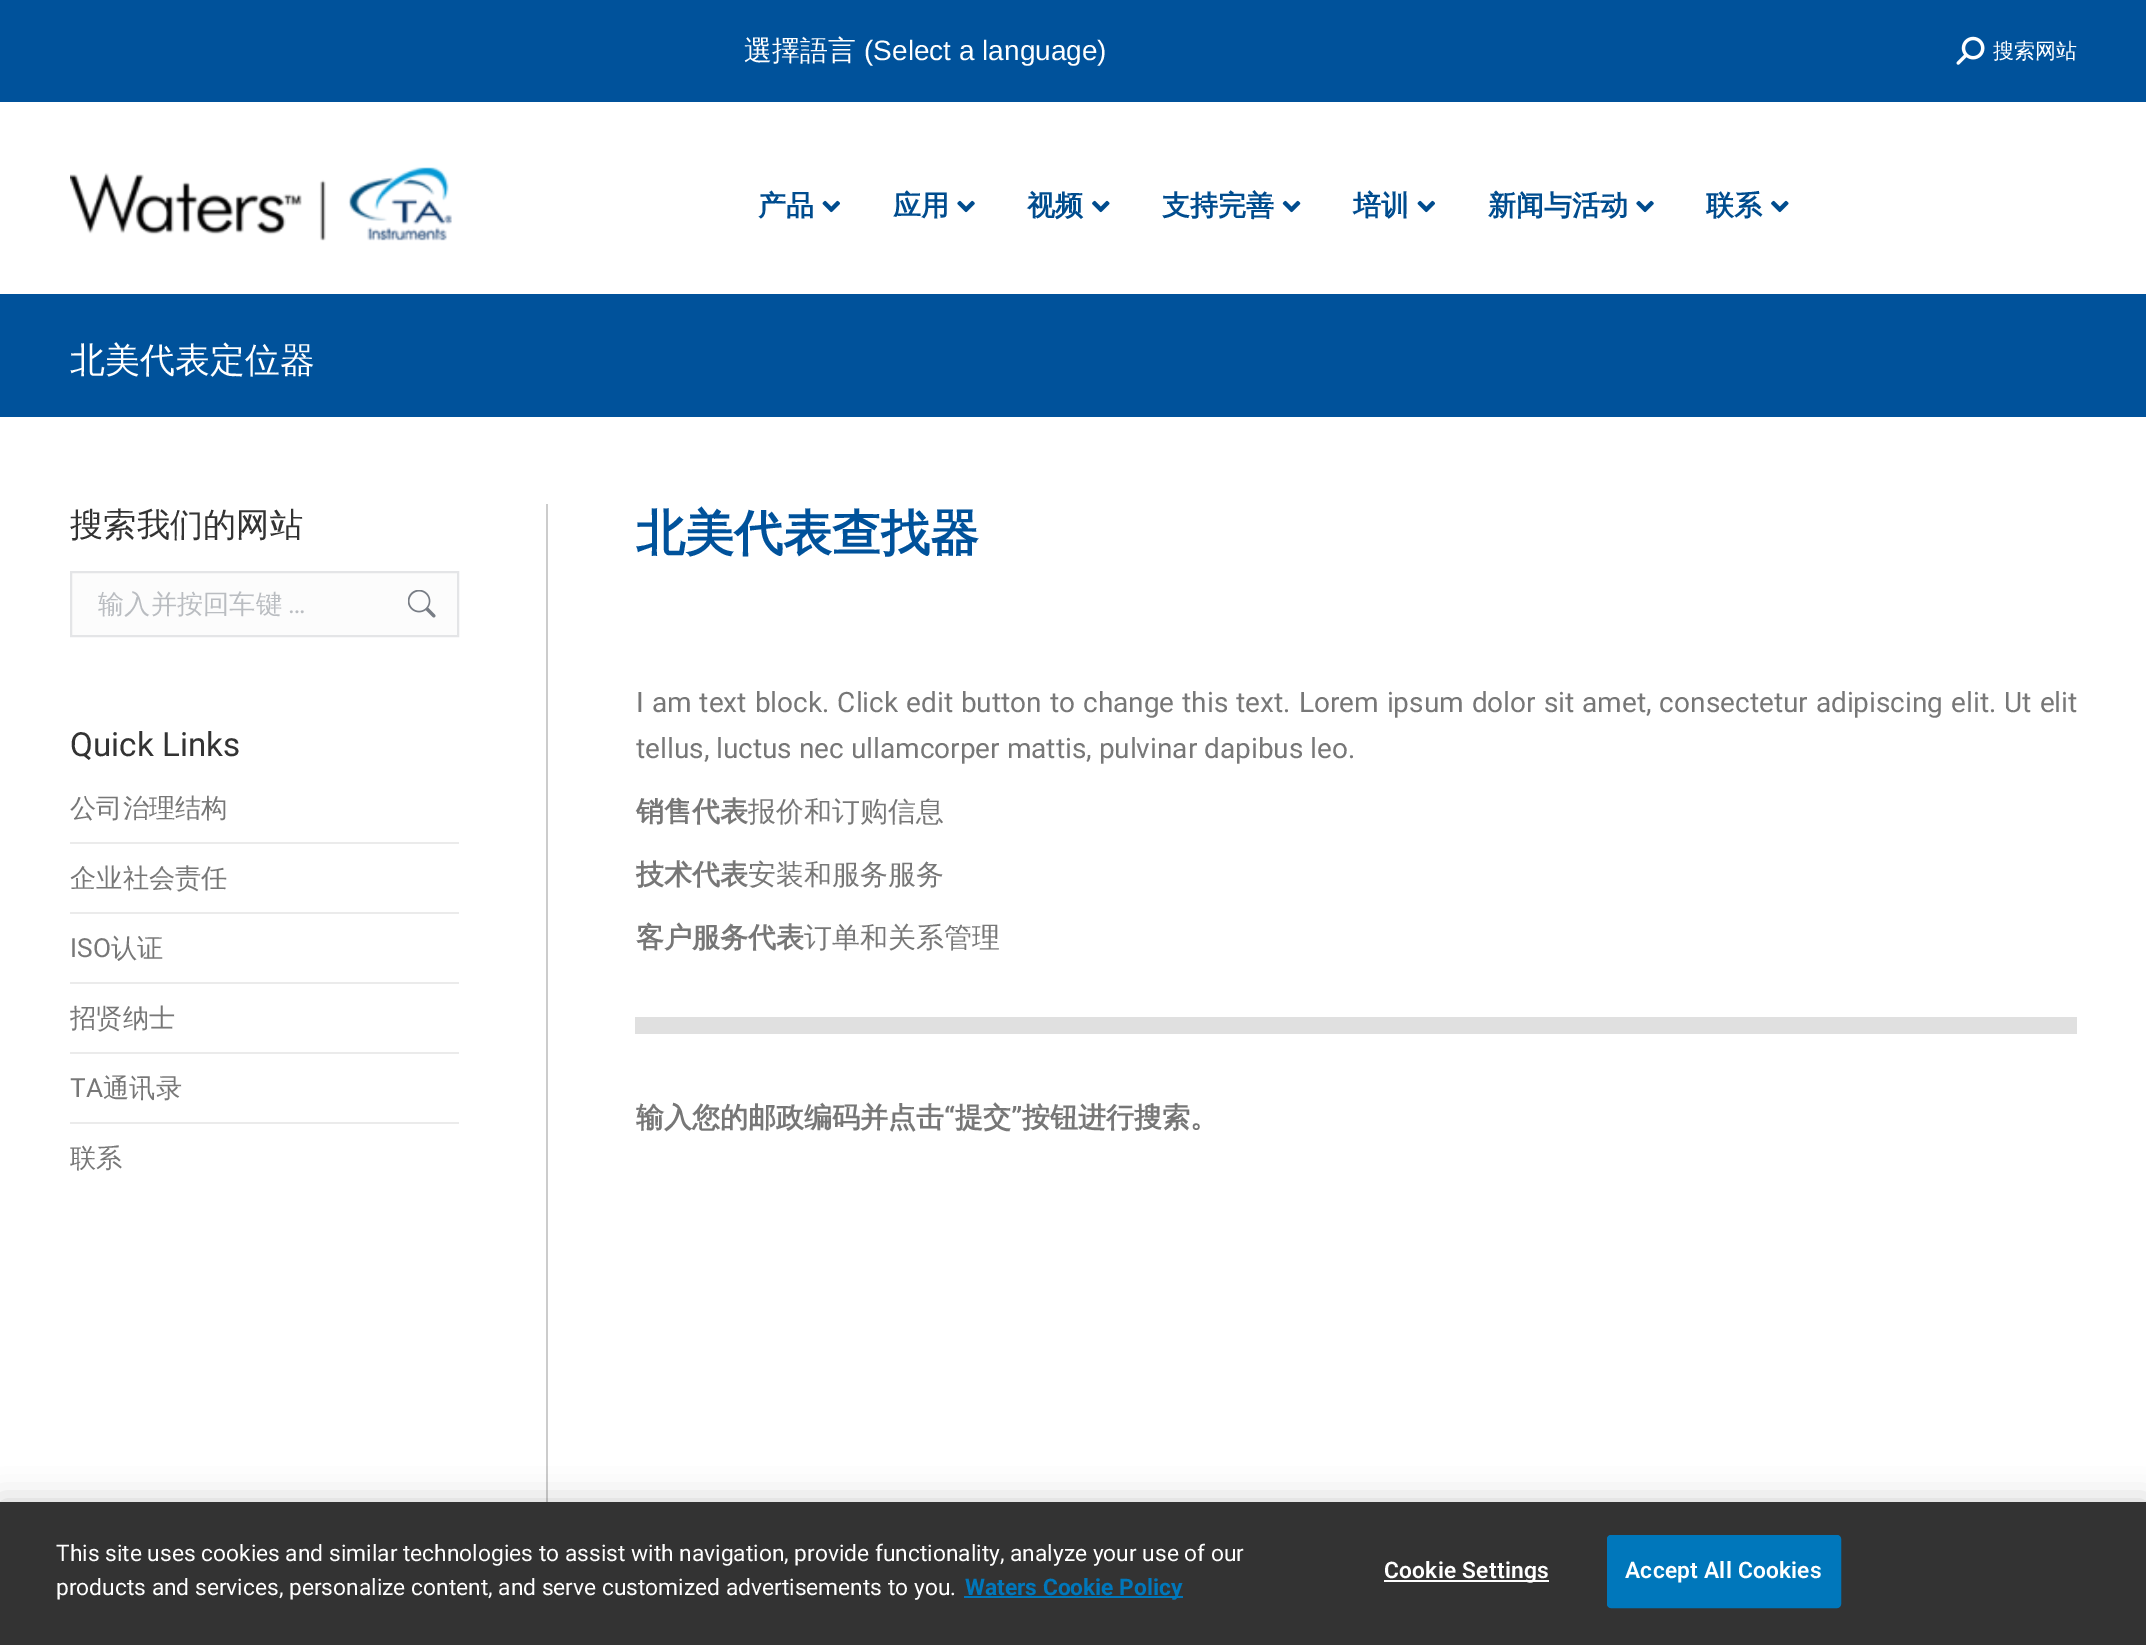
%!PS
<< /PageSize [2146 1645] /PageUsesTransparency true >> setpagedevice
/rgb { dup -16 bitshift 255 div exch dup -8 bitshift 255 and 255 div exch 255 and 255 div setrgbcolor } def
/font { [ exch dup neg 0 0 3 -1 roll 0 0 ] selectfont } def
/text { moveto show } def
/alpha { dup .setfillconstantalpha .setstrokeconstantalpha } def
/roundrect { 5 dict begin { /r /h /w /y /x } { exch def } forall
  x r add y moveto x w add y 2 copy h add r arct x w add y h add x 1 index r arct
  x y h add x y r arct x y 2 copy exch w add exch r arct closepath end } def
/shadow { 12 dict begin { /a /b /q /h /w /y /x } { exch def } forall gsave /was 0 def
  9 -2 -9 { dup b mul 4 div /e exch def 1 sub .425 mul 2.718 exch exp 1 add a .99 .min exch div /now exch def
    1 1 now sub 1 was sub div sub alpha /was now def
    w h .min e 2 mul add 0 gt { x e sub y e sub w e 2 mul add h e 2 mul add
      q e add b .6 mul add w h .min 2 div e add .min 0 .max roundrect fill } if } for grestore end } def
/picture { 5 dict begin { /h /w /y /x /name } { exch def } forall
  gsave x y translate w h scale
  w h 8 [w 0 0 h 0 0] name (r) file false 3 colorimage grestore end } def
0 .pushpdf14devicefilter
0 1645 translate 1 -1 scale
4 setmiterlimit
/s1 { /WenQuanYiZenHei-Medium 28 font 16#FFFFFF rgb } def
/s2 { /LiberationSans-Regular 28 font 16#FFFFFF rgb } def
/s3 { /WenQuanYiZenHei-Medium 21 font 16#FFFFFF rgb } def
/s4 { /WenQuanYiZenHei-Bold 28 font 16#004C8E rgb } def
/s5 { /WenQuanYiZenHei-Medium 35 font 16#FFFFFF rgb } def
/s6 { /WenQuanYiZenHei-Medium 33.25 font 16#333333 rgb } def
/s7 { /WenQuanYiZenHei-Medium 26.25 font 16#BABDC1 rgb } def
/s8 { /Roboto-Regular 26.25 font 16#BABDC1 rgb } def
/s9 { /Roboto-Regular 33.25 font 16#333333 rgb } def
/s10 { /WenQuanYiZenHei-Medium 26.25 font 16#777777 rgb } def
/s11 { /Roboto-Regular 26.25 font 16#777777 rgb } def
/s12 { /WenQuanYiZenHei-Bold 49 font 16#00529B rgb } def
/s13 { /Roboto-Regular 28 font 16#777777 rgb } def
/s14 { /WenQuanYiZenHei-Bold 28 font 16#777777 rgb } def
/s15 { /WenQuanYiZenHei-Medium 28 font 16#777777 rgb } def
/s16 { /Roboto-Bold 28 font 16#777777 rgb } def
/s17 { /Roboto-Regular 22.75 font 16#FFFFFF rgb } def
/s18 { /Roboto-Bold 22.75 font 16#0077BB rgb } def
16#FFFFFF rgb
0 0 2146 1645 rectfill
16#00529B rgb
0 0 2146 102 rectfill
s1
(選擇語言) 744 60 text
s2
(\(Select a language\)) 864 60 text
(pic1.raw) 1956 36 29 29 picture
s3
(搜索网站) 1993 58 text
(pic2.raw) 70 167 382 74 picture
s4
(产品) 758 215 text
(pic3.raw) 822 200 18 13 picture
(应用) 893 215 text
(pic4.raw) 957 200 18 13 picture
(视频) 1027 215 text
(pic5.raw) 1092 200 18 13 picture
(支持完善) 1162 215 text
(pic6.raw) 1282 200 19 13 picture
(培训) 1353 215 text
(pic3.raw) 1417 200 18 13 picture
(新闻与活动) 1488 215 text
(pic4.raw) 1636 200 18 13 picture
(联系) 1706 215 text
(pic5.raw) 1771 200 18 13 picture
16#00529B rgb
0 294 2146 123 rectfill
s5
(北美代表定位器) 70 372 text
16#CCCCCC rgb
546 504 2 998 rectfill
s6
(搜索我们的网站) 70 536 text
16#FCFCFC rgb
71 572 moveto 458 572 lineto 458 636 lineto 71 636 lineto closepath gsave fill grestore
16#E4E5E7 rgb
2 setlinewidth
stroke
s7
(输入并按回车键) 98 613 text
s8
(…) 288 613 text
(pic7.raw) 408 590 28 28 picture
s9
(Quick Links) 70 756 text
s10
(公司治理结构) 70 817 text
16#EBEBEB rgb
70 842 389 2 rectfill
s10
(企业社会责任) 70 887 text
16#EBEBEB rgb
70 912 389 2 rectfill
s11
(ISO) 70 957 text
s10
(认证) 111 957 text
16#EBEBEB rgb
70 982 389 2 rectfill
s10
(招贤纳士) 70 1027 text
16#EBEBEB rgb
70 1052 389 2 rectfill
s11
(TA) 70 1097 text
s10
(通讯录) 103 1097 text
16#EBEBEB rgb
70 1122 389 2 rectfill
s10
(联系) 70 1167 text
s12
(北美代表查找器) 636 550 text
/Roboto-Regular 28 font
16#777777 rgb
636 712 moveto 1.1 0 32 (I am text block. Click edit button to change this text. Lorem ipsum dolor sit amet, consectetur adipiscing elit. Ut elit) widthshow
(tellus, luctus nec ullamcorper mattis, pulvinar dapibus leo.) 636 758 text
s14
(销售代表) 636 821 text
s15
(报价和订购信息) 748 821 text
s14
(技术代表) 636 884 text
s15
(安装和服务服务) 748 884 text
s14
(客户服务代表) 636 947 text
s15
(订单和关系管理) 804 947 text
16#E0E0E0 rgb
635 1017 1442 17 rectfill
s14
(输入您的邮政编码并点击) 636 1127 text
s16
(“) 944 1127 text
s14
(提交) 955 1127 text
s16
(”) 1011 1127 text
s14
(按钮进行搜索。) 1022 1127 text
16#000000 rgb
0 1502 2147 143 0 16 0.2 shadow
16#333333 rgb
0 1502 2146 143 rectfill
s17
(This site uses cookies and similar technologies to assist with navigation, provide functionality, analyze your use of our) 56 1561 text
(products and services, personalize content, and serve customized advertisements to you.) 56 1595 text
16#0077BB rgb
964 1596 219 2 rectfill
s18
(Waters Cookie Policy) 965 1595 text
16#FFFFFF rgb
1384 1580 165 2 rectfill
/Roboto-SemiBold 22.75 font
1384 1578 moveto 0.25 0 (Cookie Settings) ashow
16#0077BB rgb
1608 1536 232 71 3 roundrect gsave fill grestore
stroke
16#FFFFFF rgb
1625 1578 moveto 0.25 0 (Accept All Cookies) ashow
.poppdf14devicefilter showpage
